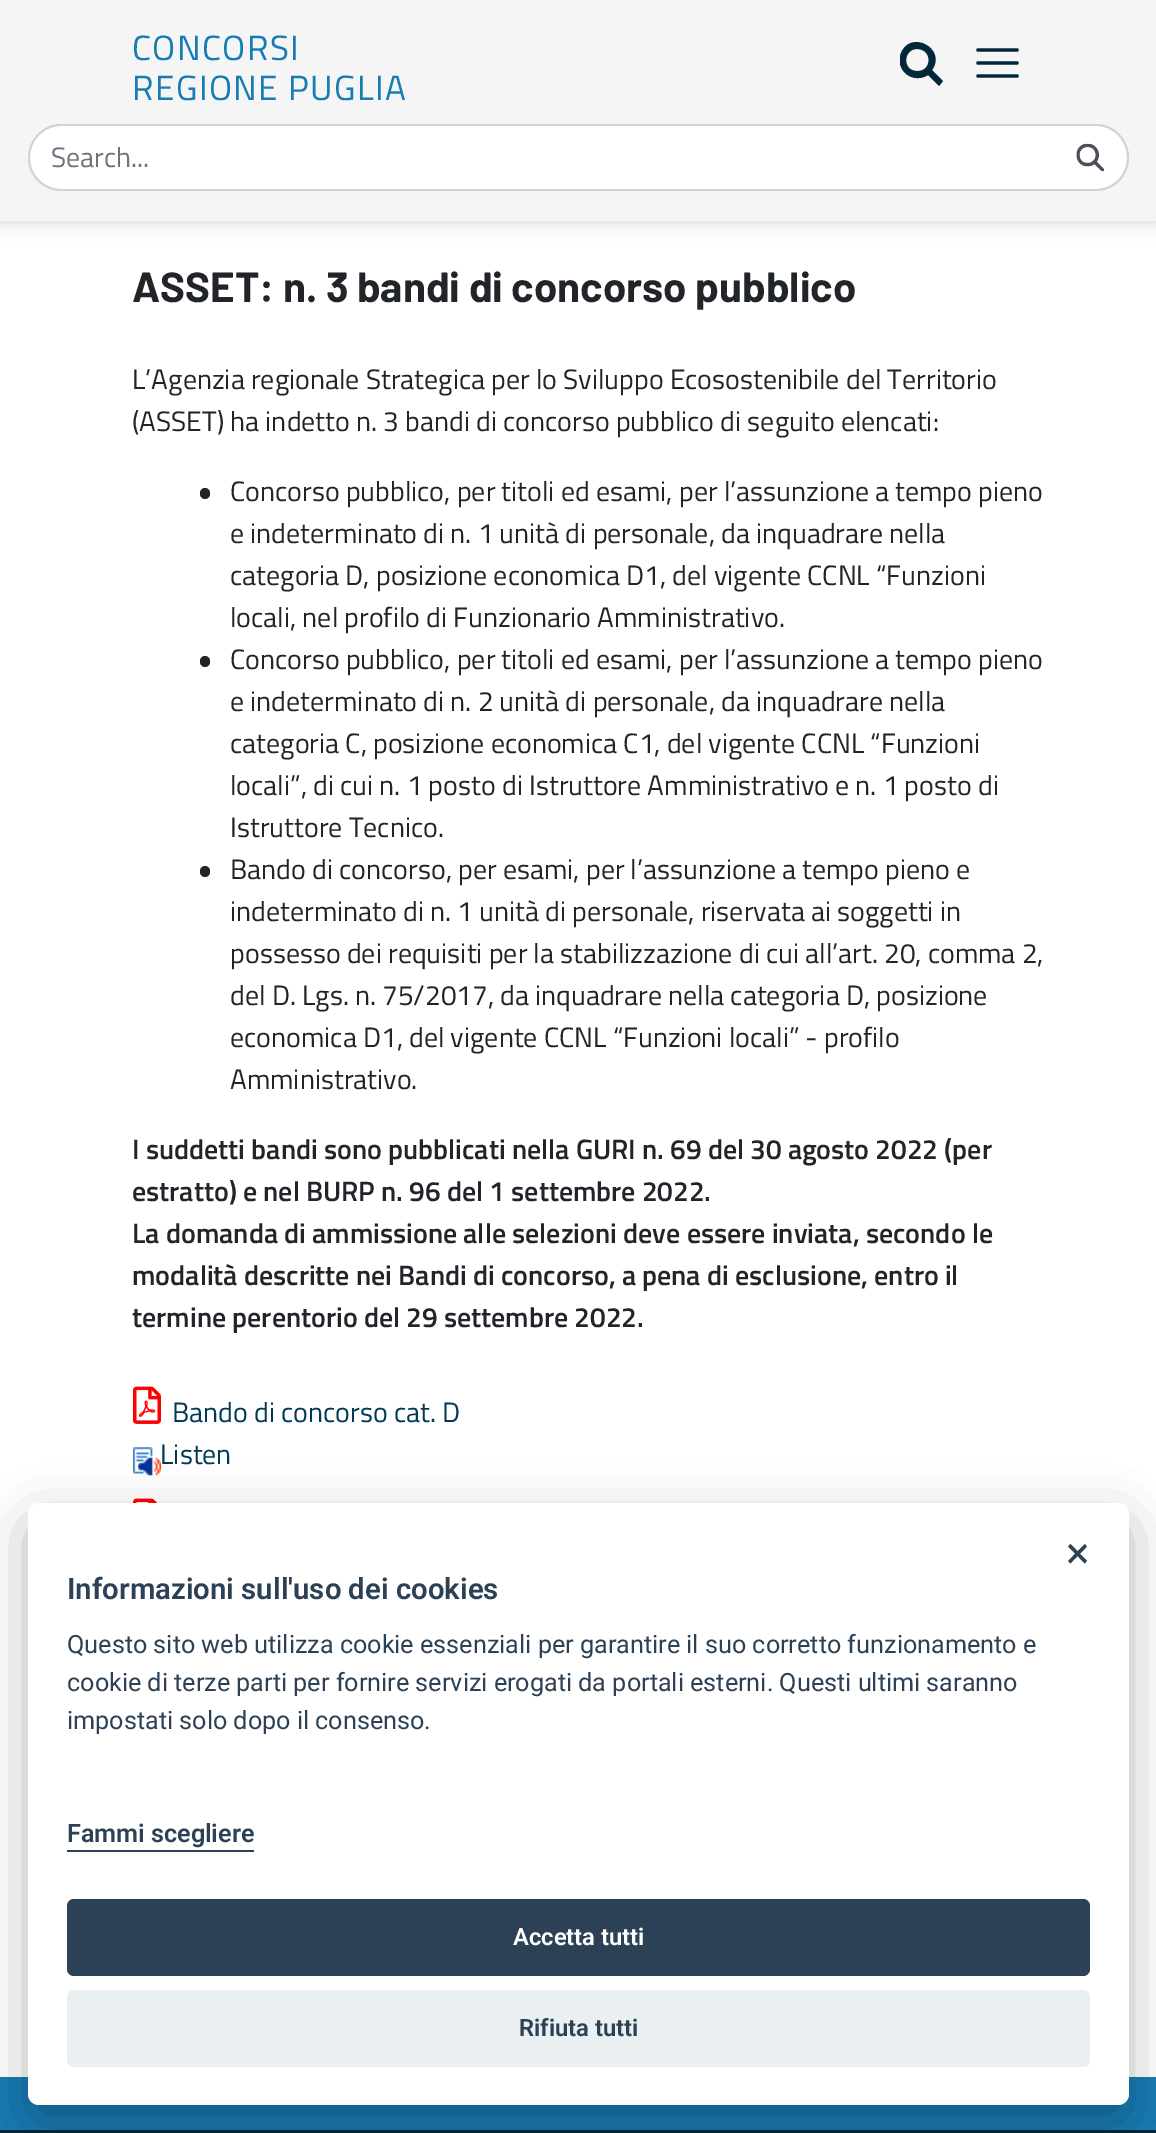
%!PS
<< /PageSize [1156 2133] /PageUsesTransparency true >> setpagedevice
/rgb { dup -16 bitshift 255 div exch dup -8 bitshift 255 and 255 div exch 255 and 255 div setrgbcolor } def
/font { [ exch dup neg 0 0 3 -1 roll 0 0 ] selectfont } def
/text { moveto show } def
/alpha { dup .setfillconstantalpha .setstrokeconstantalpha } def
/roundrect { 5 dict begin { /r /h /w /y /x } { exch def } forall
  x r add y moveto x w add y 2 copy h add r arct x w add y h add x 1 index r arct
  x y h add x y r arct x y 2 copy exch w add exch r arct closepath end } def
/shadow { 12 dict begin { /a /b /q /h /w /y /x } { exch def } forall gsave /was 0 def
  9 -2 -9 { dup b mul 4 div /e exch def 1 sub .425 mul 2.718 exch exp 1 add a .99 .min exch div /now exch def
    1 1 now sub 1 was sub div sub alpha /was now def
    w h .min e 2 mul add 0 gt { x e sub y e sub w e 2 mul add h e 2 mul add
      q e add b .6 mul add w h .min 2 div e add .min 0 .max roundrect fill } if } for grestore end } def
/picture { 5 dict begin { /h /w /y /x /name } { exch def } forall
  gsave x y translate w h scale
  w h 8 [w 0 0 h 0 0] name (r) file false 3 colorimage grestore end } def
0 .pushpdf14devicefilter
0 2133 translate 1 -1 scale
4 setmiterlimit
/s1 { /TitilliumWeb-Regular 28 font 16#6C757D rgb } def
/s2 { /Barlow-Bold 42 font 16#212529 rgb } def
/s3 { /TitilliumWeb-Regular 28 font 16#212529 rgb } def
/s4 { /TitilliumWeb-SemiBold 28 font 16#212529 rgb } def
/s5 { /TitilliumWeb-Regular 28 font 16#003A54 rgb } def
/s6 { /Roboto-Regular 44 font 16#2D4156 rgb } def
/s7 { /Roboto-SemiBold 29.4 font 16#2D4156 rgb } def
/s8 { /Roboto-Regular 25.2 font 16#2D4156 rgb } def
/s9 { /Roboto-SemiBold 25.2 font 16#2D4156 rgb } def
/s10 { /Roboto-SemiBold 23.75 font 16#FFFFFF rgb } def
/s11 { /Roboto-SemiBold 23.75 font 16#2D4156 rgb } def
16#FFFFFF rgb
0 0 1156 2133 rectfill
16#000000 rgb
0 2 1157 220 0 9 0.16 shadow
16#F5F5F5 rgb
0 0 1156 221 rectfill
/TitilliumWeb-Regular 35 font
16#187CB4 rgb
132 60 moveto 1.4 0 (CONCORSI) ashow
132 100 moveto 1.4 0 (REGIONE PUGLIA) ashow
gsave
900 42 43 44 rectclip
16#01283A rgb
939 86 moveto 928 75 lineto 919 81 907 78 902 69 curveto 899 64 899 58 901 53 curveto 911 29 947 49 932 70 curveto 943 81 lineto closepath 917 49 moveto 903 49 902 71 917 71 curveto 932 72 933 49 917 49 curveto closepath fill
grestore
16#01283A rgb
3.3 setlinewidth
1 setlinecap
978 50 moveto 1017 50 lineto 978 63 moveto 1017 63 lineto 978 76 moveto 1017 76 lineto stroke
16#FFFFFF rgb
61.5 126 moveto 1054 126 lineto 1054 189 lineto 61.5 189 lineto 44 189 30 175 30 157.5 curveto 30 140 44 126 61.5 126 curveto closepath fill
16#CED4DA rgb
61 124 moveto 1054 124 lineto 1054 191 lineto 61 191 lineto 43 191 28 176 28 158 curveto 28 139 43 124 61 124 curveto closepath 61 126 moveto 1054 126 lineto 1054 189 lineto 61 189 lineto 44 189 30 175 30 158 curveto 30 140 44 126 61 126 curveto closepath eofill
s1
(Search...) 51 167 text
16#FFFFFF rgb
1054 126 moveto 1095.5 126 lineto 1113 126 1127 140 1127 157.5 curveto 1127 175 1113 189 1095.5 189 curveto 1054 189 lineto closepath fill
16#CED4DA rgb
1054 124 moveto 1096 124 lineto 1114 124 1129 139 1129 158 curveto 1129 176 1114 191 1096 191 curveto 1054 191 lineto closepath 1054 126 moveto 1096 126 lineto 1113 126 1127 140 1127 158 curveto 1127 175 1113 189 1096 189 curveto 1054 189 lineto closepath eofill
(pic1.raw) 1076 143 28 29 picture
s2
(ASSET: n. 3 bandi di concorso pubblico) 132 302 text
s3
(L’Agenzia regionale Strategica per lo Sviluppo Ecosostenibile del Territorio) 132 389 text
(\(ASSET\) ha indetto n. 3 bandi di concorso pubblico di seguito elencati:) 132 431 text
200 488 10 11 5 roundrect fill
(Concorso pubblico, per titoli ed esami, per l’assunzione a tempo pieno) 230 501 text
(e indeterminato di n. 1 unità di personale, da inquadrare nella) 230 543 text
(categoria D, posizione economica D1, del vigente CCNL “Funzioni) 230 585 text
(locali, nel profilo di Funzionario Amministrativo.) 230 627 text
200 656 10 11 5 roundrect fill
(Concorso pubblico, per titoli ed esami, per l’assunzione a tempo pieno) 230 669 text
(e indeterminato di n. 2 unità di personale, da inquadrare nella) 230 711 text
(categoria C, posizione economica C1, del vigente CCNL “Funzioni) 230 753 text
(locali”, di cui n. 1 posto di Istruttore Amministrativo e n. 1 posto di) 230 795 text
(Istruttore Tecnico.) 230 837 text
200 866 10 11 5 roundrect fill
(Bando di concorso, per esami, per l’assunzione a tempo pieno e) 230 879 text
(indeterminato di n. 1 unità di personale, riservata ai soggetti in) 230 921 text
(possesso dei requisiti per la stabilizzazione di cui all’art. 20, comma 2,) 230 963 text
(del D. Lgs. n. 75/2017, da inquadrare nella categoria D, posizione) 230 1005 text
(economica D1, del vigente CCNL “Funzioni locali” - profilo) 230 1047 text
(Amministrativo.) 230 1089 text
s4
(I suddetti bandi sono pubblicati nella GURI n. 69 del 30 agosto 2022 \(per) 132 1159 text
(estratto\) e nel BURP n. 96 del 1 settembre 2022.) 132 1201 text
(La domanda di ammissione alle selezioni deve essere inviata, secondo le) 132 1243 text
(modalità descritte nei Bandi di concorso, a pena di esclusione, entro il) 132 1285 text
(termine perentorio del 29 settembre 2022.) 132 1327 text
(pic2.raw) 133 1386 28 38 picture
s5
(Bando di concorso cat. D) 172 1422 text
(pic3.raw) 133 1447 28 29 picture
(Listen) 160 1464 text
(pic4.raw) 133 1498 25 5 picture
16#187CB4 rgb
0 2077 1156 53 rectfill
16#002537 rgb
0 2130 1156 3 rectfill
16#020203 rgb
28 1521 1101 602 11 26 0.28 shadow
16#FFFFFF rgb
28 1503 1101 602 11 roundrect fill
s6
(×) 1066 1568 text
s7
(Informazioni sull'uso dei cookies) 67 1599 text
s8
(Questo sito web utilizza cookie essenziali per garantire il suo corretto funzionamento e) 67 1653 text
(cookie di terze parti per fornire servizi erogati da portali esterni. Questi ultimi saranno) 67 1691 text
(impostati solo dopo il consenso.) 67 1729 text
s9
(Fammi scegliere) 67 1842 text
67 1850 187 2 rectfill
67 1899 1023 77 7 roundrect fill
s10
(Accetta tutti) 513 1945 text
16#EAEFF2 rgb
67 1990 1023 77 7 roundrect fill
s11
(Rifiuta tutti) 519 2036 text
.poppdf14devicefilter showpage
